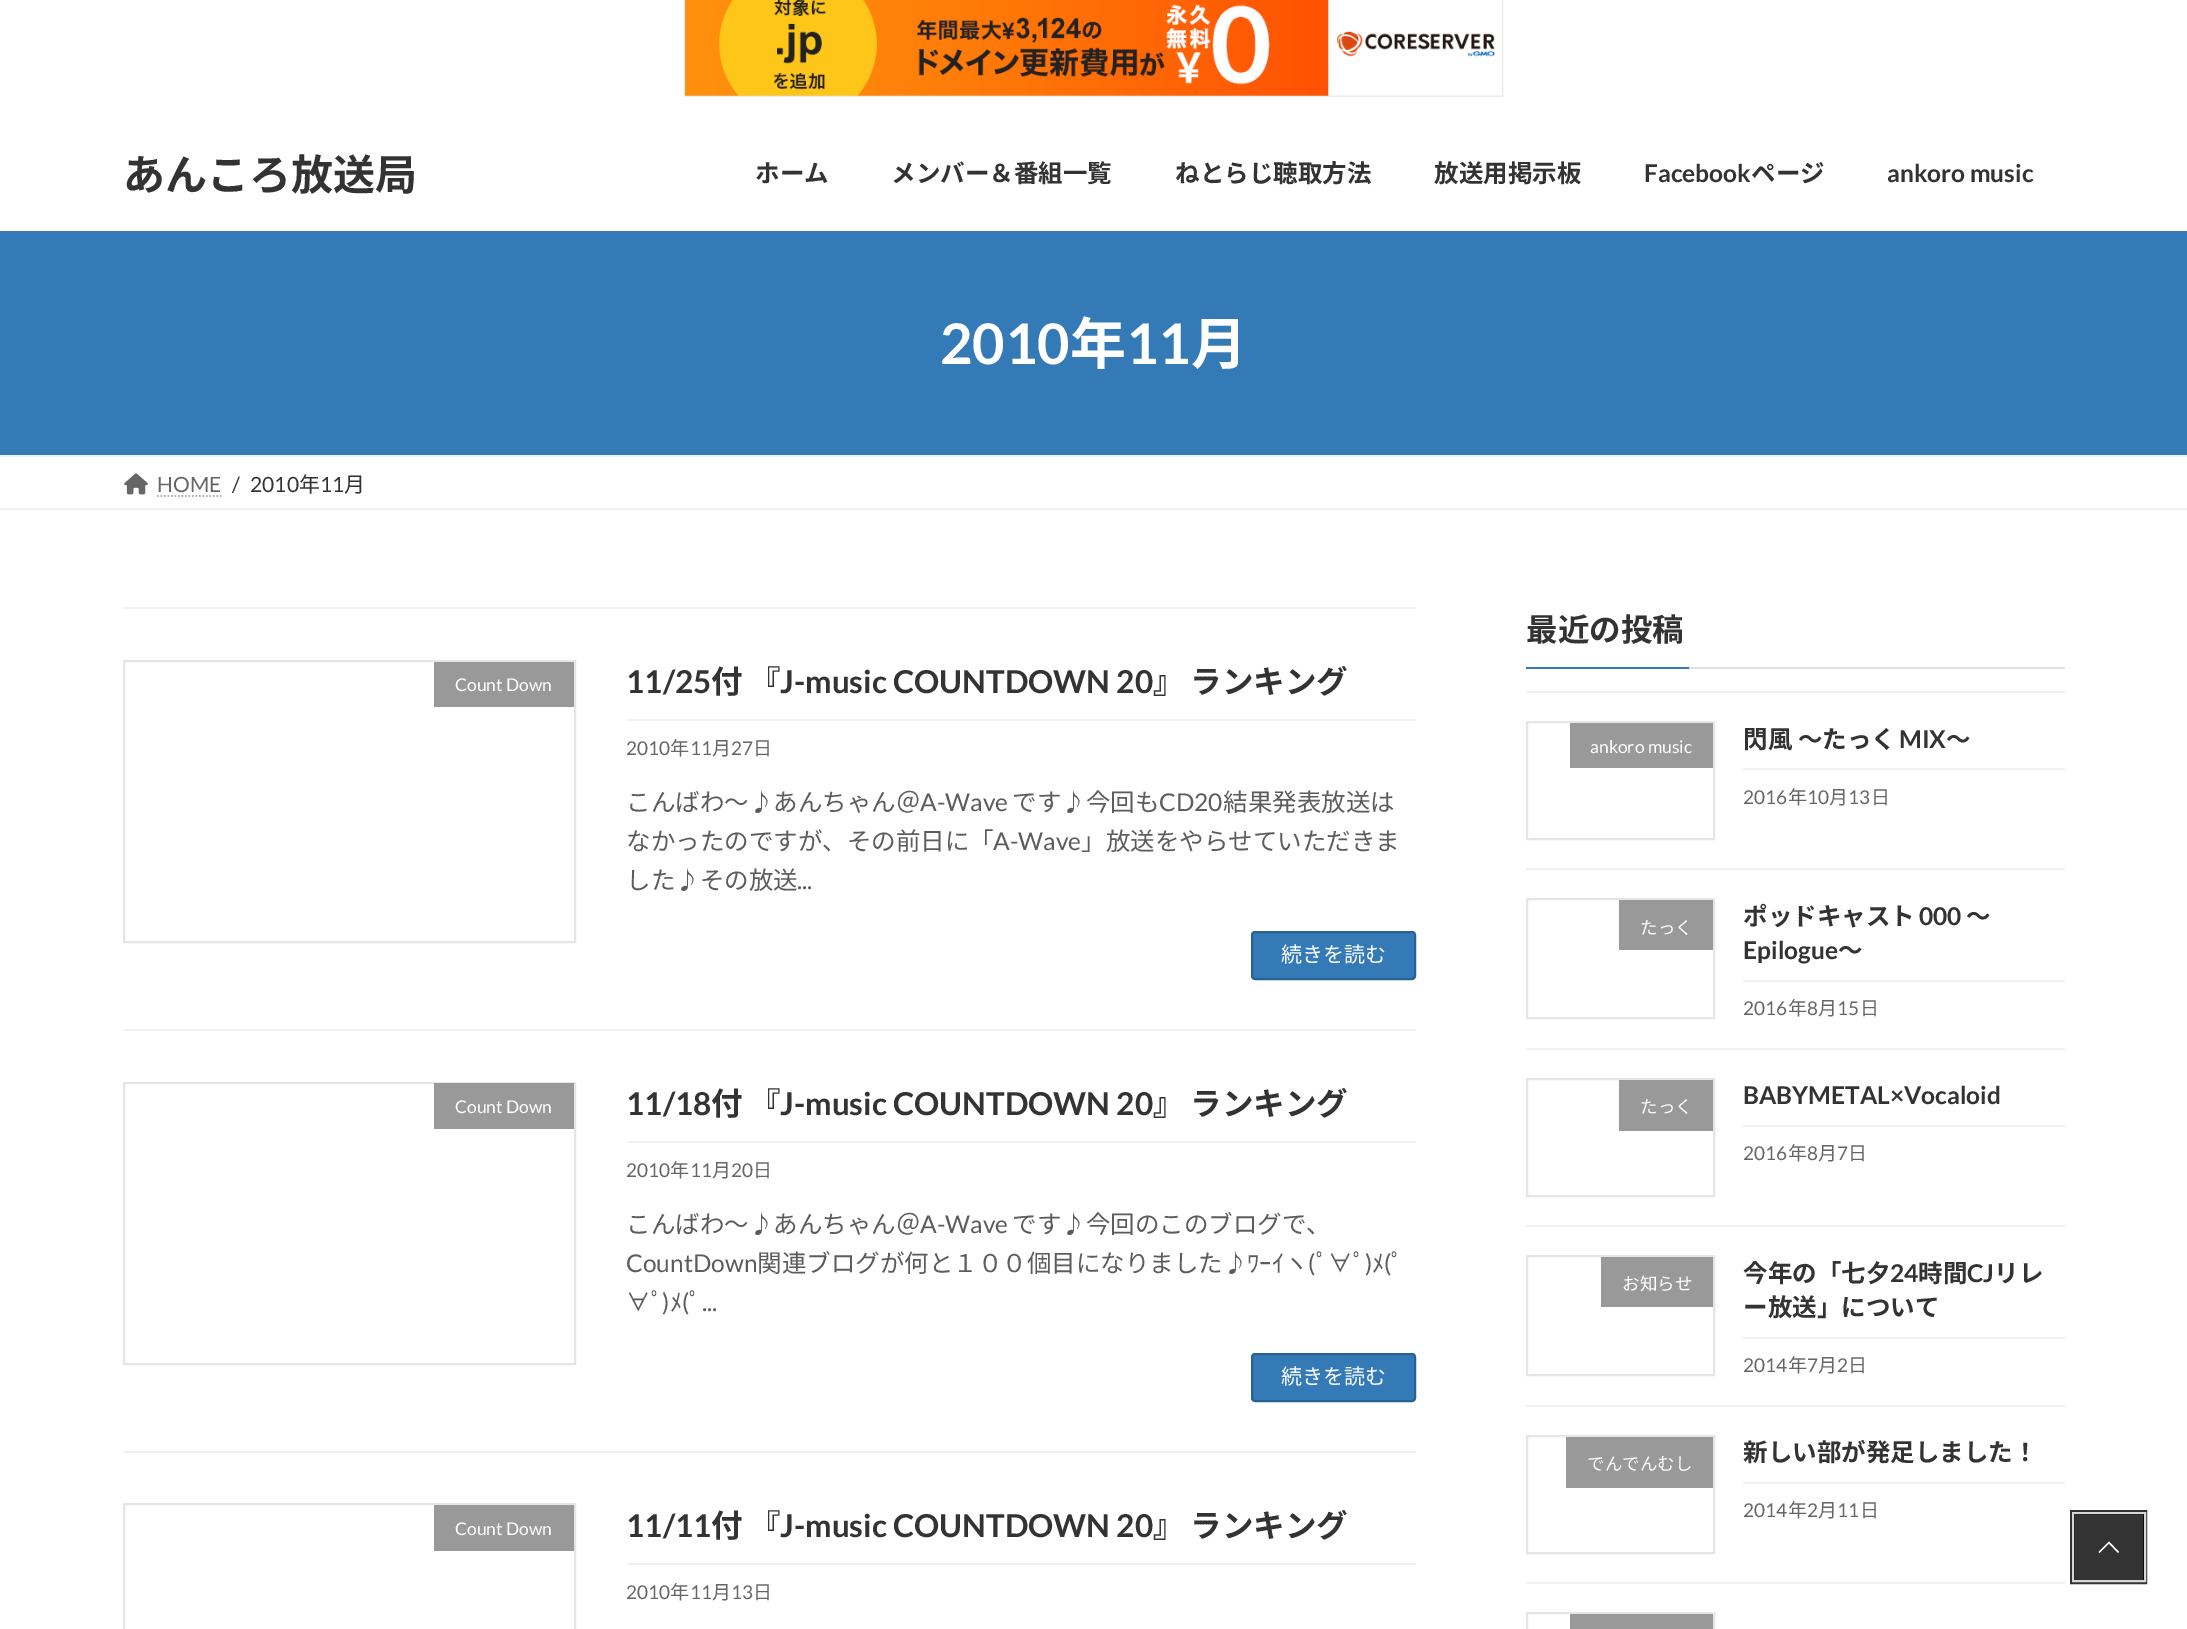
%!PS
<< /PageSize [2187 1629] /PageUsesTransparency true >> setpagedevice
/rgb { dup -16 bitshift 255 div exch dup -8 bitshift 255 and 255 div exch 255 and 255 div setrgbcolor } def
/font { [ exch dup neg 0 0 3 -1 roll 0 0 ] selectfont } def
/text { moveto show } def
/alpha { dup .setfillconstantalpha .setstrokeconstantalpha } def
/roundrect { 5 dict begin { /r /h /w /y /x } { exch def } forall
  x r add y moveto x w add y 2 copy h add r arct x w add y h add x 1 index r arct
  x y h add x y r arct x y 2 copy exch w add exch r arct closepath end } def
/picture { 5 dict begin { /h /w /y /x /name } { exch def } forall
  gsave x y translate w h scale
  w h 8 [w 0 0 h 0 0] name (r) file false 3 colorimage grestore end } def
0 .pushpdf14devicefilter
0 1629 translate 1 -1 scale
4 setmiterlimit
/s1 { /NotoSansJP-Bold 42 font 16#333333 rgb } def
/s2 { /NotoSansJP-Bold 24.5 font 16#333333 rgb } def
/s3 { /Lato-Bold 24.5 font 16#333333 rgb } def
/s4 { /Lato-Bold 56 font 16#FFFFFF rgb } def
/s5 { /NotoSansJP-Bold 56 font 16#FFFFFF rgb } def
/s6 { /Lato-Regular 21 font 16#666666 rgb } def
/s7 { /Lato-Regular 21 font 16#333333 rgb } def
/s8 { /NotoSansJP-Regular 21 font 16#333333 rgb } def
/s9 { /Lato-Regular 17.5 font 16#FFFFFF rgb } def
/s10 { /Lato-Bold 31.5 font 16#333333 rgb } def
/s11 { /NotoSansJP-Bold 31.5 font 16#333333 rgb } def
/s12 { /Lato-Regular 19 font 16#666666 rgb } def
/s13 { /NotoSansJP-Regular 19 font 16#666666 rgb } def
/s14 { /NotoSansJP-Regular 24.5 font 16#5C5C5C rgb } def
/s15 { /Lato-Regular 24.5 font 16#5C5C5C rgb } def
/s16 { /NotoSansJP-Regular 21 font 16#FFFFFF rgb } def
/s17 { /NotoSansJP-Regular 17.5 font 16#FFFFFF rgb } def
16#FFFFFF rgb
0 0 2187 1629 rectfill
(pic1.raw) 684 0 820 97 picture
s1
(あんころ放送局) 123 190 text
s2
(ホーム) 755 182 text
(メンバー＆番組一覧) 891 182 text
(ねとらじ聴取方法) 1175 182 text
(放送用掲示板) 1434 182 text
s3
(Facebook) 1644 182 text
s2
(ページ) 1751 182 text
s3
(ankoro music) 1887 182 text
16#337AB7 rgb
0 231 2187 224 rectfill
s4
(2010) 940 364 text
s5
(年) 1070 364 text
s4
(11) 1126 364 text
s5
(月) 1191 364 text
16#F0F0F0 rgb
0 455 2187 2 rectfill
0 508 2187 2 rectfill
(pic2.raw) 124 473 24 22 picture
s6
(HOME) 157 492 text
16#B3B3B3 rgb
1.8 setlinewidth
[1.75 1.75] 0 setdash
157 496 moveto 221.5 496 lineto stroke
s7
(/) 232 492 text
(2010) 250 492 text
s8
(年) 299 492 text
s7
(11) 320 492 text
s8
(月) 344 492 text
16#F0F0F0 rgb
123 607 1293 2 rectfill
123 1029 1293 2 rectfill
16#E5E5E5 rgb
2 setlinewidth
[] 0 setdash
124 661 451 281 rectstroke
16#999999 rgb
434 662 140 45 rectfill
s9
(Count Down) 455 691 text
16#F0F0F0 rgb
627 719 789 2 rectfill
s10
(11/25) 626 693 text
s11
(付) 711 693 text
(『) 749 693 text
s10
(J-music COUNTDOWN 20) 780 693 text
s11
(』) 1153 693 text
(ランキング) 1190 693 text
s12
(2010) 626 755 text
s13
(年) 670 755 text
s12
(11) 690 755 text
s13
(月) 712 755 text
s12
(27) 731 755 text
s13
(日) 753 755 text
s14
(こんばわ～♪あんちゃん＠) 626 811 text
s15
(A-Wave) 920 811 text
s14
(です♪今回も) 1012 811 text
s15
(CD20) 1159 811 text
s14
(結果発表放送は) 1223 811 text
(なかったのですが、その前日に「) 626 850 text
s15
(A-Wave) 993 850 text
s14
(」放送をやらせていただきま) 1081 850 text
(した♪その放送) 626 889 text
s15
(...) 797 889 text
16#337AB7 rgb
1252 932 163 47 3 roundrect gsave fill grestore
16#296292 rgb
stroke
s16
(続きを読む) 1281 962 text
16#F0F0F0 rgb
123 1451 1293 2 rectfill
16#E5E5E5 rgb
124 1083 451 281 rectstroke
16#999999 rgb
434 1083 140 46 rectfill
s9
(Count Down) 455 1113 text
16#F0F0F0 rgb
627 1141 789 2 rectfill
s10
(11/18) 626 1115 text
s11
(付) 711 1115 text
(『) 749 1115 text
s10
(J-music COUNTDOWN 20) 780 1115 text
s11
(』) 1153 1115 text
(ランキング) 1190 1115 text
s12
(2010) 626 1177 text
s13
(年) 670 1177 text
s12
(11) 690 1177 text
s13
(月) 712 1177 text
s12
(20) 731 1177 text
s13
(日) 753 1177 text
s14
(こんばわ～♪あんちゃん＠) 626 1233 text
s15
(A-Wave) 920 1233 text
s14
(です♪今回のこのブログで、) 1012 1233 text
s15
(CountDown) 626 1272 text
s14
(関連ブログが何と１００個目になりました♪ﾜｰｲヽ) 757 1272 text
s15
(\() 1308 1272 text
s14
(ﾟ∀ﾟ) 1316 1272 text
s15
(\)) 1365 1272 text
s14
(ﾒ) 1372 1272 text
s15
(\() 1384 1272 text
s14
(ﾟ) 1391 1272 text
(∀ﾟ) 626 1311 text
s15
(\)) 662 1311 text
s14
(ﾒ) 670 1311 text
s15
(\() 682 1311 text
s14
(ﾟ) 689 1311 text
s15
(...) 702 1311 text
16#337AB7 rgb
1252 1354 163 47 3 roundrect gsave fill grestore
16#296292 rgb
stroke
s16
(続きを読む) 1281 1384 text
16#E5E5E5 rgb
124 1504 451 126 rectstroke
16#999999 rgb
434 1505 140 46 rectfill
s9
(Count Down) 455 1535 text
16#F0F0F0 rgb
627 1563 789 2 rectfill
s10
(11/11) 626 1537 text
s11
(付) 711 1537 text
(『) 749 1537 text
s10
(J-music COUNTDOWN 20) 780 1537 text
s11
(』) 1153 1537 text
(ランキング) 1190 1537 text
s12
(2010) 626 1599 text
s13
(年) 670 1599 text
s12
(11) 690 1599 text
s13
(月) 712 1599 text
s12
(13) 731 1599 text
s13
(日) 753 1599 text
16#E0E0E0 rgb
1689 667 376 2 rectfill
s11
(最近の投稿) 1526 641 text
16#337AB7 rgb
1526 667 163 2 rectfill
16#F0F0F0 rgb
1526 691 539 2 rectfill
1526 868 539 2 rectfill
16#E5E5E5 rgb
1527 722 187 117 rectstroke
16#999999 rgb
1570 723 143 45 rectfill
s9
(ankoro music) 1590 753 text
16#F0F0F0 rgb
1743 768 322 2 rectfill
s2
(閃風 ～たっく) 1743 748 text
s3
(MIX) 1899 748 text
s2
(～) 1946 748 text
s12
(2016) 1743 804 text
s13
(年) 1788 804 text
s12
(10) 1807 804 text
s13
(月) 1829 804 text
s12
(13) 1848 804 text
s13
(日) 1871 804 text
16#F0F0F0 rgb
1526 1048 539 2 rectfill
16#E5E5E5 rgb
1527 899 187 119 rectstroke
16#999999 rgb
1619 900 94 50 rectfill
s17
(たっく) 1640 934 text
16#F0F0F0 rgb
1743 980 322 2 rectfill
s2
(ポッドキャスト) 1743 925 text
s3
(000) 1919 925 text
s2
(～) 1966 925 text
s3
(Epilogue) 1743 959 text
s2
(～) 1838 959 text
s12
(2016) 1743 1015 text
s13
(年) 1788 1015 text
s12
(8) 1807 1015 text
s13
(月) 1818 1015 text
s12
(15) 1837 1015 text
s13
(日) 1860 1015 text
16#F0F0F0 rgb
1526 1225 539 2 rectfill
16#E5E5E5 rgb
1527 1079 187 117 rectstroke
16#999999 rgb
1619 1080 94 51 rectfill
s17
(たっく) 1640 1113 text
16#F0F0F0 rgb
1743 1125 322 2 rectfill
s3
(BABYMETAL×Vocaloid) 1743 1104 text
s12
(2016) 1743 1160 text
s13
(年) 1788 1160 text
s12
(8) 1807 1160 text
s13
(月) 1818 1160 text
s12
(7) 1837 1160 text
s13
(日) 1848 1160 text
16#F0F0F0 rgb
1526 1405 539 2 rectfill
16#E5E5E5 rgb
1527 1256 187 119 rectstroke
16#999999 rgb
1601 1257 112 50 rectfill
s17
(お知らせ) 1622 1290 text
16#F0F0F0 rgb
1743 1337 322 2 rectfill
s2
(今年の「七夕) 1743 1282 text
s3
(24) 1890 1282 text
s2
(時間) 1918 1282 text
s3
(CJ) 1967 1282 text
s2
(リレ) 1994 1282 text
(ー放送」について) 1743 1316 text
s12
(2014) 1743 1372 text
s13
(年) 1788 1372 text
s12
(7) 1807 1372 text
s13
(月) 1818 1372 text
s12
(2) 1837 1372 text
s13
(日) 1848 1372 text
16#F0F0F0 rgb
1526 1582 539 2 rectfill
16#E5E5E5 rgb
1527 1436 187 117 rectstroke
16#999999 rgb
1566 1437 147 51 rectfill
s17
(でんでんむし) 1587 1470 text
16#F0F0F0 rgb
1743 1482 322 2 rectfill
s2
(新しい部が発足しました！) 1743 1461 text
s12
(2014) 1743 1517 text
s13
(年) 1788 1517 text
s12
(2) 1807 1517 text
s13
(月) 1818 1517 text
s12
(11) 1837 1517 text
s13
(日) 1860 1517 text
16#E5E5E5 rgb
1527 1613 187 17 rectstroke
16#999999 rgb
1570 1614 143 15 rectfill
16#333333 rgb
4 setlinewidth
2072 1512 73 70 rectstroke
16#D6D6D6 rgb
2 setlinewidth
2073 1513 72 68 rectstroke
0.8 alpha
16#000000 rgb
2074 1514 70 66 rectfill
1 alpha
16#FFFFFF rgb
2119 1552 moveto 2118 1553 lineto 2109 1543.5 lineto 2099.5 1553 lineto 2098.5 1552 lineto 2109 1541.5 lineto closepath fill
.poppdf14devicefilter showpage
